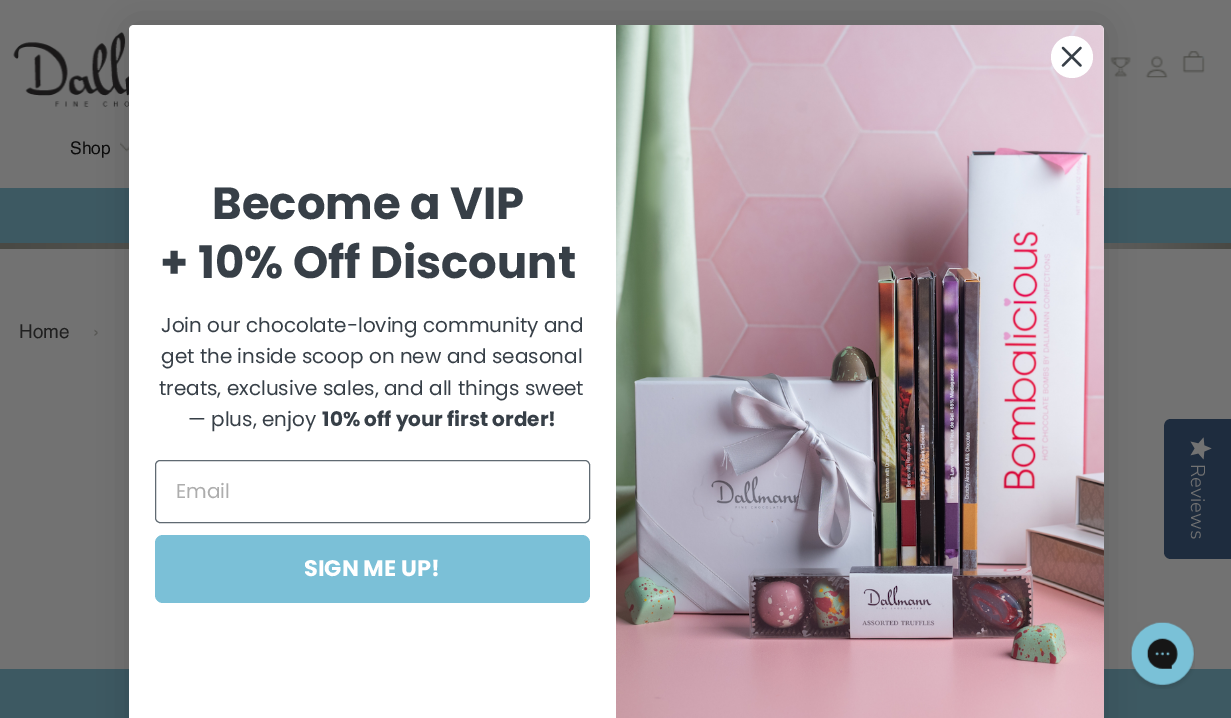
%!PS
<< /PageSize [1231 718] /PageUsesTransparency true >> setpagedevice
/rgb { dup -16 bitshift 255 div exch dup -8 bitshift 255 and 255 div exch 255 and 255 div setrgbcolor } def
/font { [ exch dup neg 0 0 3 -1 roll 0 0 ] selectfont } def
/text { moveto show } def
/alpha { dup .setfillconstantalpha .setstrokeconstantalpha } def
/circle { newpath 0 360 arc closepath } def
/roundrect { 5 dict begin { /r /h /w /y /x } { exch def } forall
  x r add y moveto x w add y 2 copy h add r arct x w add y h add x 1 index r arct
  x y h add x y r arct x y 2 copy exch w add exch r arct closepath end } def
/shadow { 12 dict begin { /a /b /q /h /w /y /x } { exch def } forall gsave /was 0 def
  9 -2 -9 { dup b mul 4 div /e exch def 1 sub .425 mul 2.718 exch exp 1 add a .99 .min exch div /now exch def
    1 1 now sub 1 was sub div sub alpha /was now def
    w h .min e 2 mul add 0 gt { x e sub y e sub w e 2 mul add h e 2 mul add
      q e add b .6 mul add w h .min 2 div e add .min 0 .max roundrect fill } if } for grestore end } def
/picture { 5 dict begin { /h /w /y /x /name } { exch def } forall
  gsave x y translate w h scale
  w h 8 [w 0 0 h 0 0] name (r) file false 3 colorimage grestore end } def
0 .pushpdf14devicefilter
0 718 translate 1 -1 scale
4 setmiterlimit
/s1 { /Helvetica-Regular 17.5 font 16#0C0C0C rgb } def
/s2 { /Helvetica-Regular 19 font 16#202020 rgb } def
/s3 { /Helvetica-Regular 19 font 16#575754 rgb } def
/s4 { /Poppins-Bold 45 font 16#373F47 rgb } def
/s5 { /Poppins-Regular 20 font 16#373F47 rgb } def
/s6 { /Poppins-Bold 20 font 16#373F47 rgb } def
/s7 { /Poppins-Regular 20 font 16#ADADAD rgb } def
/s8 { /Poppins-Bold 22.5 font 16#FFFFFF rgb } def
16#727272 rgb
0 0 1231 718 rectfill
(pic1.raw) 13 32 116 75 picture
(pic2.raw) 1110 57 21 20 picture
(pic3.raw) 1145 56 23 22 picture
(pic4.raw) 1182 51 23 22 picture
(pic5.raw) 120 142 9 10 picture
s1
(Shop) 70 154 text
16#3D5962 rgb
0 188 1231 55 rectfill
gsave 0 243 moveto 1231 243 lineto 1231 249 lineto 0 249 lineto closepath clip newpath
<< /ShadingType 2 /ColorSpace /DeviceRGB /Coords [0 246 1231 246] /Extend [true true] /Function << /FunctionType 3 /Domain [0 1] /Functions [<< /FunctionType 2 /Domain [0 1] /C0 [0.286 0.286 0.267] /C1 [0.447 0.447 0.447] /N 1 >> << /FunctionType 2 /Domain [0 1] /C0 [0.447 0.447 0.447] /C1 [0.369 0.369 0.369] /N 1 >> << /FunctionType 2 /Domain [0 1] /C0 [0.369 0.369 0.369] /C1 [0.42 0.42 0.42] /N 1 >> << /FunctionType 2 /Domain [0 1] /C0 [0.42 0.42 0.42] /C1 [0.286 0.286 0.267] /N 1 >>] /Bounds [0.5 0.68 0.84] /Encode [0 1 0 1 0 1 0 1] >> >> shfill grestore
s2
(Home) 19 338 text
s3
(›) 93 338 text
16#3D5962 rgb
0 669 1231 49 rectfill
16#000000 rgb
129 25 975 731 5 19 0.15 shadow
16#FFFFFF rgb
134 25 moveto 1099 25 lineto 1102 25 1104 27 1104 30 curveto 1104 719 lineto 129 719 lineto 129 30 lineto 129 27 131 25 134 25 curveto closepath fill
(pic6.raw) 616 25 488 693 picture
1072 57 21 circle fill
16#373F47 rgb
2.2 setlinewidth
1 setlinecap
1 setlinejoin
1063 48 moveto 1080.5 65.5 lineto 1063 65.5 moveto 1080.5 48 lineto closepath stroke
s4
(Become a VIP) 212 219 text
(+ 10% Off Discount) 160 278 text
s5
(Join our chocolate-loving community and) 161 332 text
(get the inside scoop on new and seasonal) 161 363 text
(treats, exclusive sales, and all things sweet) 159 395 text
(— plus, enjoy) 188 426 text
s6
(10% off your first order!) 322 426 text
16#606A72 rgb
1 setlinewidth
0 setlinecap
0 setlinejoin
155.5 460.5 434 62 4.5 roundrect stroke
s7
(Email) 176 498 text
16#7BC0D7 rgb
155 535 435 68 8 roundrect fill
s8
(SIGN ME UP!) 304 576 text
16#1E2C3E rgb
1231 419 moveto 1231 559 lineto 1171 559 lineto 1167 559 1164 556 1164 552 curveto 1164 427 lineto 1164 422 1167 419 1171 419 curveto closepath fill
(pic7.raw) 1190 437 22 23 picture
/NunitoSans-Light 20 font
16#727272 rgb
gsave 1191 464 translate 90 rotate 0 0 moveto (Reviews) show grestore
(pic8.raw) 1130 622 65 67 picture
.poppdf14devicefilter showpage
